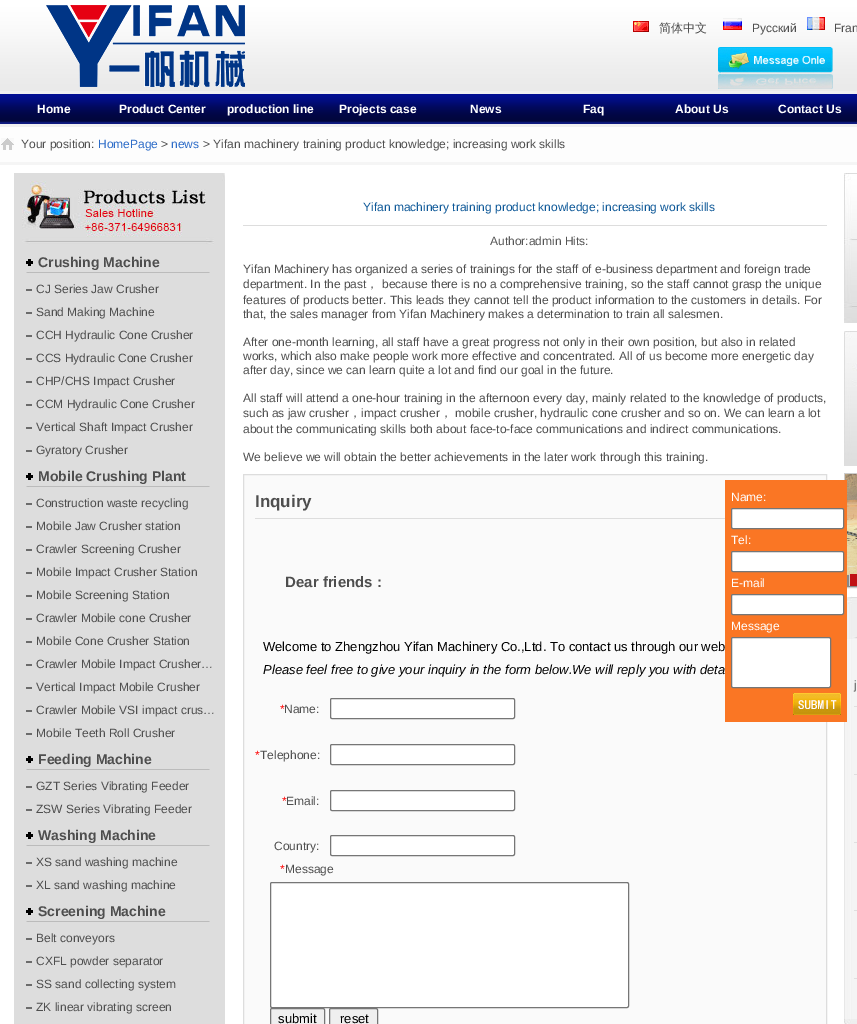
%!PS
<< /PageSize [857 1024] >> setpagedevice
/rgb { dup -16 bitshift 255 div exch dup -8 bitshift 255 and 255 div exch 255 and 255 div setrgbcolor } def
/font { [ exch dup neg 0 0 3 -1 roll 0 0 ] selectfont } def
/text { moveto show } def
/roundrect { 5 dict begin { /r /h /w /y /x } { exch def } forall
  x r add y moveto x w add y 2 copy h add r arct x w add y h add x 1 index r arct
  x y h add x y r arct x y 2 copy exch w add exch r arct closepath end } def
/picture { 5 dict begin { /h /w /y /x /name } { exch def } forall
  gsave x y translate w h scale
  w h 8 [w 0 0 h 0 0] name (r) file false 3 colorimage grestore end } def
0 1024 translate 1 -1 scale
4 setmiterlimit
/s1 { /WenQuanYiZenHei-Medium 12 font 16#4E4E4E rgb } def
/s2 { /LiberationSans-Regular 12 font 16#4E4E4E rgb } def
/s3 { /LiberationSans-Bold 12 font 16#FFFFFF rgb } def
/s4 { /LiberationSans-Regular 12 font 16#2D6CC8 rgb } def
/s5 { /LiberationSans-Bold 14 font 16#4E4E4E rgb } def
/s6 { /LiberationSans-Regular 12 font 16#0D5898 rgb } def
/s7 { /LiberationSans-Regular 12 font 16#555555 rgb } def
/s8 { /LiberationSans-Bold 17 font 16#4E4E4E rgb } def
/s9 { /LiberationSans-Bold 15 font 16#4E4E4E rgb } def
/s10 { /LiberationSans-Regular 13 font 16#000000 rgb } def
/s11 { /LiberationSans-Italic 13 font 16#000000 rgb } def
/s12 { /LiberationSans-Regular 12 font 16#FF0000 rgb } def
/s13 { /LiberationSans-Regular 12 font 16#FFFFFF rgb } def
16#F0F0F0 rgb
0 0 857 1024 rectfill
(pic1.raw) 0 0 857 91 picture
(pic2.raw) 46 5 199 82 picture
(pic3.raw) 633 21 16 11 picture
s1
(简体中文) 659 32 text
(pic4.raw) 723 18 19 12 picture
s2
(Pусский) 752 32 text
(pic5.raw) 807 17 18 13 picture
(Fran) 834 32 text
(pic6.raw) 718 47 115 42 picture
(pic7.raw) 0 94 857 30 picture
s3
(Home) 37 113 text
(Product Center) 119 113 text
(production line) 227 113 text
(Projects case) 339 113 text
(News) 470 113 text
(Faq) 583 113 text
(About Us) 675 113 text
(Contact Us) 778 113 text
16#FDFDFD rgb
0 127 857 35 rectfill
16#F5F5F5 rgb
0 162 857 3 rectfill
(pic8.raw) 1 138 13 12 picture
s2
(Your position:) 21 148 text
s4
(HomePage) 98 148 text
s2
(>) 161 148 text
s4
(news) 171 148 text
s2
(> Yifan machinery training product knowledge; increasing work skills) 203 148 text
16#FFFFFF rgb
0 165 857 859 rectfill
(pic9.raw) 14 173 211 75 picture
16#DDDDDD rgb
14 248 211 776 rectfill
(pic10.raw) 26 259 184 14 picture
s5
(Crushing Machine) 38 267 text
16#6B6B6B rgb
26 289 6 2 rectfill
s2
(CJ Series Jaw Crusher) 36 293 text
16#6B6B6B rgb
26 312 6 2 rectfill
s2
(Sand Making Machine) 36 316 text
16#6B6B6B rgb
26 335 6 2 rectfill
s2
(CCH Hydraulic Cone Crusher) 36 339 text
16#6B6B6B rgb
26 358 6 2 rectfill
s2
(CCS Hydraulic Cone Crusher) 36 362 text
16#6B6B6B rgb
26 381 6 2 rectfill
s2
(CHP/CHS Impact Crusher) 36 385 text
16#6B6B6B rgb
26 404 6 2 rectfill
s2
(CCM Hydraulic Cone Crusher) 36 408 text
16#6B6B6B rgb
26 427 6 2 rectfill
s2
(Vertical Shaft Impact Crusher) 36 431 text
16#6B6B6B rgb
26 450 6 2 rectfill
s2
(Gyratory Crusher) 36 454 text
(pic10.raw) 26 473 184 14 picture
s5
(Mobile Crushing Plant) 38 481 text
16#6B6B6B rgb
26 503 6 2 rectfill
s2
(Construction waste recycling) 36 507 text
16#6B6B6B rgb
26 526 6 2 rectfill
s2
(Mobile Jaw Crusher station) 36 530 text
16#6B6B6B rgb
26 549 6 2 rectfill
s2
(Crawler Screening Crusher) 36 553 text
16#6B6B6B rgb
26 572 6 2 rectfill
s2
(Mobile Impact Crusher Station) 36 576 text
16#6B6B6B rgb
26 595 6 2 rectfill
s2
(Mobile Screening Station) 36 599 text
16#6B6B6B rgb
26 618 6 2 rectfill
s2
(Crawler Mobile cone Crusher) 36 622 text
16#6B6B6B rgb
26 641 6 2 rectfill
s2
(Mobile Cone Crusher Station) 36 645 text
16#6B6B6B rgb
26 664 6 2 rectfill
s2
(Crawler Mobile Impact Crusher…) 36 668 text
16#6B6B6B rgb
26 687 6 2 rectfill
s2
(Vertical Impact Mobile Crusher) 36 691 text
16#6B6B6B rgb
26 710 6 2 rectfill
s2
(Crawler Mobile VSI impact crus…) 36 714 text
16#6B6B6B rgb
26 733 6 2 rectfill
s2
(Mobile Teeth Roll Crusher) 36 737 text
(pic10.raw) 26 756 184 14 picture
s5
(Feeding Machine) 38 764 text
16#6B6B6B rgb
26 786 6 2 rectfill
s2
(GZT Series Vibrating Feeder) 36 790 text
16#6B6B6B rgb
26 809 6 2 rectfill
s2
(ZSW Series Vibrating Feeder) 36 813 text
(pic10.raw) 26 832 184 14 picture
s5
(Washing Machine) 38 840 text
16#6B6B6B rgb
26 862 6 2 rectfill
s2
(XS sand washing machine) 36 866 text
16#6B6B6B rgb
26 885 6 2 rectfill
s2
(XL sand washing machine) 36 889 text
(pic10.raw) 26 908 184 14 picture
s5
(Screening Machine) 38 916 text
16#6B6B6B rgb
26 938 6 2 rectfill
s2
(Belt conveyors) 36 942 text
16#6B6B6B rgb
26 961 6 2 rectfill
s2
(CXFL powder separator) 36 965 text
16#6B6B6B rgb
26 984 6 2 rectfill
s2
(SS sand collecting system) 36 988 text
16#6B6B6B rgb
26 1007 6 2 rectfill
s2
(ZK linear vibrating screen) 36 1011 text
16#DDDDDD rgb
243 225 584 1 rectfill
s6
(Yifan machinery training product knowledge; increasing work skills) 363 211 text
s7
(Author:admin Hits:) 490 245 text
s2
(Yifan Machinery has organized a series of trainings for the staff of e-business department and foreign trade) 243 273 text
(department. In the past) 243 288 text
s1
(，) 366 288 text
s2
(because there is no a comprehensive training, so the staff cannot grasp the unique) 382 288 text
(features of products better. This leads they cannot tell the product information to the customers in details. For) 243 304 text
(that, the sales manager from Yifan Machinery makes a determination to train all salesmen.) 243 318 text
(After one-month learning, all staff have a great progress not only in their own position, but also in related) 243 346 text
(works, which also make people work more effective and concentrated. All of us become more energetic day) 243 360 text
(after day, since we can learn quite a lot and find our goal in the future.) 243 374 text
(All staff will attend a one-hour training in the afternoon every day, mainly related to the knowledge of products,) 243 402 text
(such as jaw crusher) 243 417 text
s1
(，) 349 417 text
s2
(impact crusher) 361 417 text
s1
(，) 440 417 text
s2
(mobile crusher, hydraulic cone crusher and so on. We can learn a lot) 455 417 text
(about the communicating skills both about face-to-face communications and indirect communications.) 243 433 text
(We believe we will obtain the better achievements in the later work through this training.) 243 461 text
16#FAFAFA rgb
243.5 474.5 moveto 826.5 474.5 lineto 826.5 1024.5 lineto 243.5 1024.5 lineto closepath gsave fill grestore
16#DDDDDD rgb
stroke
255 518 470 1 rectfill
s8
(Inquiry) 255 507 text
s9
(Dear friends :) 285 587 text
s10
(Welcome to Zhengzhou Yifan Machinery Co.,Ltd. To contact us through our web) 263 651 text
s11
(Please feel free to give your inquiry in the form below.We will reply you with deta) 263 674 text
s12
(*) 280 713 text
s2
(Name:) 284 713 text
16#FFFFFF rgb
330.5 698.5 184 20 1.5 roundrect gsave fill grestore
16#767676 rgb
stroke
s12
(*) 255 759 text
s2
(Telephone:) 260 759 text
16#FFFFFF rgb
330.5 744.5 184 20 1.5 roundrect gsave fill grestore
16#767676 rgb
stroke
s12
(*) 282 805 text
s2
(Email:) 286 805 text
16#FFFFFF rgb
330.5 790.5 184 20 1.5 roundrect gsave fill grestore
16#767676 rgb
stroke
s2
(Country:) 274 850 text
16#FFFFFF rgb
330.5 835.5 184 20 1.5 roundrect gsave fill grestore
16#767676 rgb
stroke
s12
(*) 280 873 text
s2
(Message) 285 873 text
16#FFFFFF rgb
270.5 882.5 358 125 1.5 roundrect gsave fill grestore
16#767676 rgb
stroke
16#EFEFEF rgb
270.5 1008.5 54 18 1.5 roundrect gsave fill grestore
16#767676 rgb
stroke
s10
(submit) 278 1023 text
16#EFEFEF rgb
329.5 1008.5 48 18 1.5 roundrect gsave fill grestore
16#767676 rgb
stroke
s10
(reset) 340 1023 text
(pic11.raw) 844 173 13 150 picture
(pic12.raw) 844 331 13 135 picture
16#CCCCCC rgb
844.5 473.5 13 114 rectstroke
(pic13.raw) 845 474 12 101 picture
16#888888 rgb
847 575 10 12 rectfill
16#CCCCCC rgb
849 574 1 12 rectfill
16#C01014 rgb
850 574 7 12 rectfill
(pic14.raw) 847 596 10 43 picture
(pic15.raw) 844 639 13 380 picture
16#DFDFDF rgb
854 706 3 1 rectfill
s2
(j) 854 689 text
16#DFDFDF rgb
854 774 3 1 rectfill
854 842 3 1 rectfill
854 910 3 1 rectfill
854 978 3 1 rectfill
(pic16.raw) 844 1019 13 5 picture
16#FA7624 rgb
725 480 122 242 rectfill
s13
(Name:) 731 501 text
731.5 508.5 112 20 1.5 roundrect gsave fill grestore
16#767676 rgb
stroke
s13
(Tel:) 731 544 text
731.5 551.5 112 20 1.5 roundrect gsave fill grestore
16#767676 rgb
stroke
s13
(E-mail) 731 587 text
731.5 594.5 112 20 1.5 roundrect gsave fill grestore
16#767676 rgb
stroke
s13
(Message) 731 630 text
731.5 637.5 99 50 1.5 roundrect gsave fill grestore
16#767676 rgb
stroke
(pic17.raw) 793 693 48 22 picture
showpage
